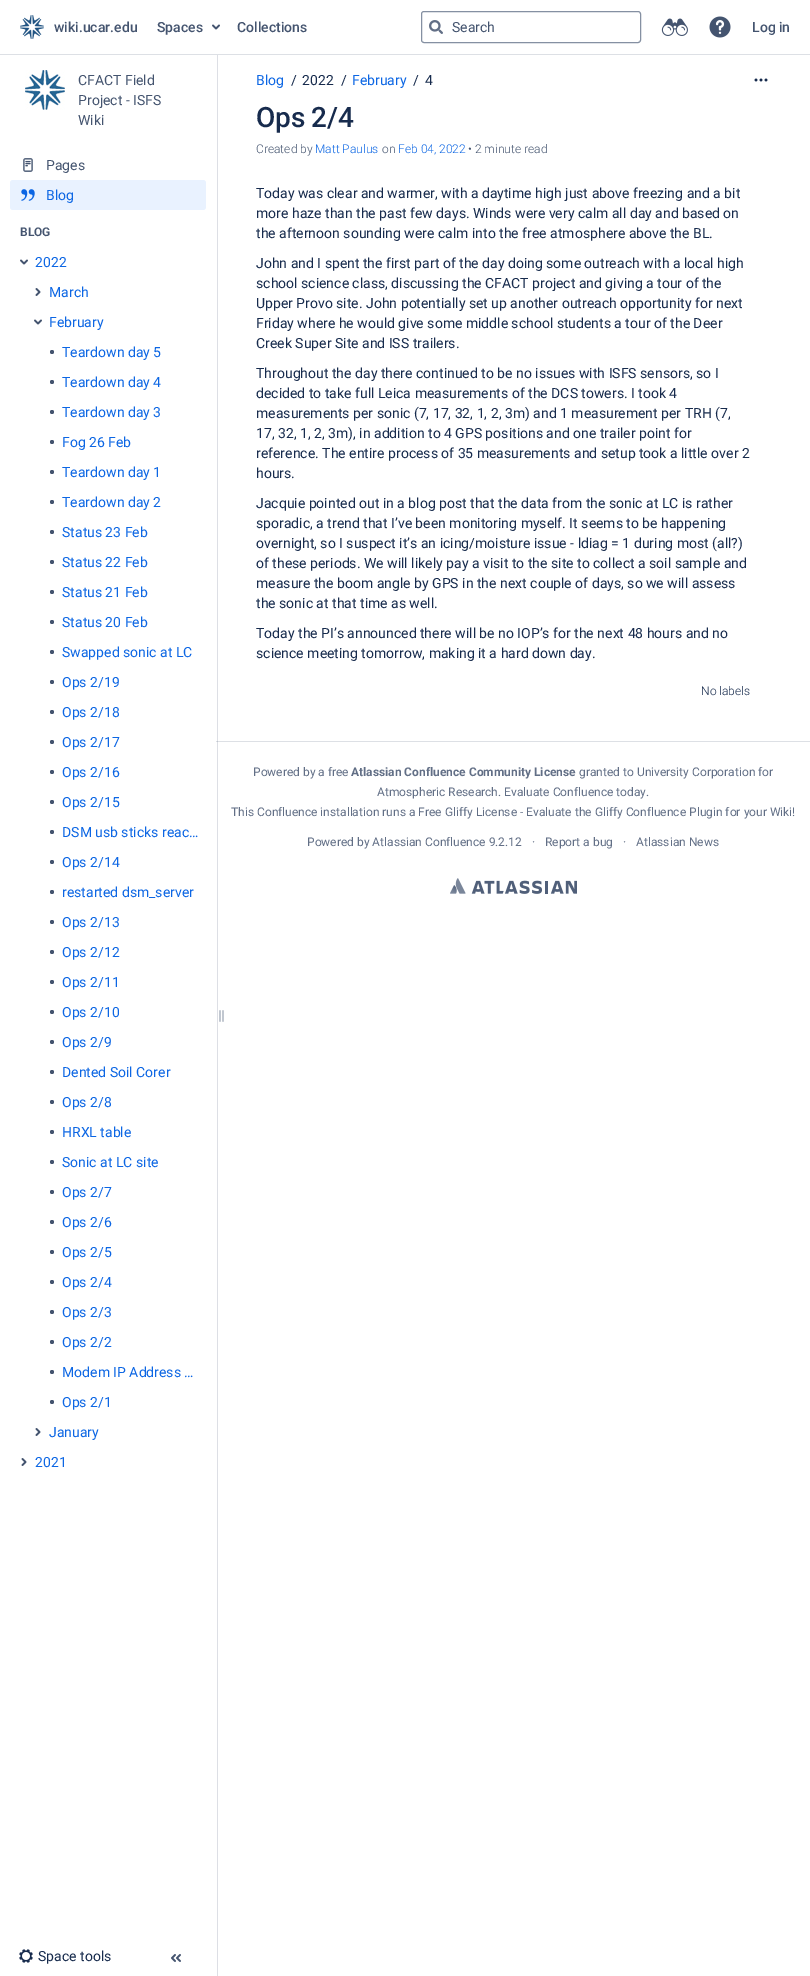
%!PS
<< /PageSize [810 1976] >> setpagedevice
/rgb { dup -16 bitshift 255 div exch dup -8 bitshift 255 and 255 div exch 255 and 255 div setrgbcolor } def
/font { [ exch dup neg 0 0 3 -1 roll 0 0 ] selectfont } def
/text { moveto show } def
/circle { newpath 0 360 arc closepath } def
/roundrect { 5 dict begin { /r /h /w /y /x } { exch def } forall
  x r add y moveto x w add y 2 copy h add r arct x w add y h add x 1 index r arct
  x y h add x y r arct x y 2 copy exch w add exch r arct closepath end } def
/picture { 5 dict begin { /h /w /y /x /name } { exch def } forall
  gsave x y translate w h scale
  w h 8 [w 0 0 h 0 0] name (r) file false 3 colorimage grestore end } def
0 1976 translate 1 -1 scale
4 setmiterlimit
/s1 { /Roboto-Medium 14 font 16#44546F rgb } def
/s2 { /Roboto-Regular 14 font 16#44546F rgb } def
/s3 { /Roboto-Regular 14 font 16#0C66E4 rgb } def
/s4 { /Roboto-SemiBold 12 font 16#44546F rgb } def
/s5 { /Roboto-Regular 14 font 16#172B4D rgb } def
/s6 { /Roboto-Light 12 font 16#44546F rgb } def
/s7 { /Roboto-Light 12 font 16#0C66E4 rgb } def
/s8 { /Roboto-Light 12 font 16#172B4D rgb } def
/s9 { /Roboto-Regular 12 font 16#626F86 rgb } def
/s10 { /Roboto-Bold 12 font 16#626F86 rgb } def
16#FFFFFF rgb
0 0 810 1976 rectfill
16#DDDFE5 rgb
217 55 1 1921 rectfill
16#DDE0E5 rgb
0 54 810 1 rectfill
(pic1.raw) 20 15 24 24 picture
s1
(wiki.ucar.edu) 54 32 text
(Spaces) 157 32 text
(pic2.raw) 212 24 8 6 picture
(Collections) 237 32 text
16#8590A2 rgb
421.5 11.5 219 31 2.5 roundrect stroke
(pic3.raw) 429 20 14 14 picture
s2
(Search) 452 32 text
(pic4.raw) 661 18 27 18 picture
(pic5.raw) 709 16 22 22 picture
s1
(Log in) 752 32 text
(pic6.raw) 25 70 40 40 picture
s2
(CFACT Field) 78 85 text
(Project - ISFS) 78 105 text
(Wiki) 78 125 text
(pic7.raw) 23 158 10 14 picture
(Pages) 46 170 text
16#E9F2FF rgb
10 180 196 30 3 roundrect fill
(pic8.raw) 21 189 14 12 picture
s3
(Blog) 46 200 text
s4
(BLOG) 20 236 text
(pic2.raw) 20 259 8 6 picture
s3
(2022) 35 267 text
(pic9.raw) 35 288 6 8 picture
(March) 49 297 text
(pic2.raw) 34 319 8 6 picture
(February) 49 327 text
16#44546F rgb
52 352 2 circle fill
s3
(Teardown day 5) 62 357 text
16#44546F rgb
52 382 2 circle fill
s3
(Teardown day 4) 62 387 text
16#44546F rgb
52 412 2 circle fill
s3
(Teardown day 3) 62 417 text
16#44546F rgb
52 442 2 circle fill
s3
(Fog 26 Feb) 62 447 text
16#44546F rgb
52 472 2 circle fill
s3
(Teardown day 1) 62 477 text
16#44546F rgb
52 502 2 circle fill
s3
(Teardown day 2) 62 507 text
16#44546F rgb
52 532 2 circle fill
s3
(Status 23 Feb) 62 537 text
16#44546F rgb
52 562 2 circle fill
s3
(Status 22 Feb) 62 567 text
16#44546F rgb
52 592 2 circle fill
s3
(Status 21 Feb) 62 597 text
16#44546F rgb
52 622 2 circle fill
s3
(Status 20 Feb) 62 627 text
16#44546F rgb
52 652 2 circle fill
s3
(Swapped sonic at LC) 62 657 text
16#44546F rgb
52 682 2 circle fill
s3
(Ops 2/19) 62 687 text
16#44546F rgb
52 712 2 circle fill
s3
(Ops 2/18) 62 717 text
16#44546F rgb
52 742 2 circle fill
s3
(Ops 2/17) 62 747 text
16#44546F rgb
52 772 2 circle fill
s3
(Ops 2/16) 62 777 text
16#44546F rgb
52 802 2 circle fill
s3
(Ops 2/15) 62 807 text
16#44546F rgb
52 832 2 circle fill
s3
(DSM usb sticks reac…) 62 837 text
16#44546F rgb
52 862 2 circle fill
s3
(Ops 2/14) 62 867 text
16#44546F rgb
52 892 2 circle fill
s3
(restarted dsm_server) 62 897 text
16#44546F rgb
52 922 2 circle fill
s3
(Ops 2/13) 62 927 text
16#44546F rgb
52 952 2 circle fill
s3
(Ops 2/12) 62 957 text
16#44546F rgb
52 982 2 circle fill
s3
(Ops 2/11) 62 987 text
16#44546F rgb
52 1012 2 circle fill
s3
(Ops 2/10) 62 1017 text
16#44546F rgb
52 1042 2 circle fill
s3
(Ops 2/9) 62 1047 text
16#44546F rgb
52 1072 2 circle fill
s3
(Dented Soil Corer) 62 1077 text
16#44546F rgb
52 1102 2 circle fill
s3
(Ops 2/8) 62 1107 text
16#44546F rgb
52 1132 2 circle fill
s3
(HRXL table) 62 1137 text
16#44546F rgb
52 1162 2 circle fill
s3
(Sonic at LC site) 62 1167 text
16#44546F rgb
52 1192 2 circle fill
s3
(Ops 2/7) 62 1197 text
16#44546F rgb
52 1222 2 circle fill
s3
(Ops 2/6) 62 1227 text
16#44546F rgb
52 1252 2 circle fill
s3
(Ops 2/5) 62 1257 text
16#44546F rgb
52 1282 2 circle fill
s3
(Ops 2/4) 62 1287 text
16#44546F rgb
52 1312 2 circle fill
s3
(Ops 2/3) 62 1317 text
16#44546F rgb
52 1342 2 circle fill
s3
(Ops 2/2) 62 1347 text
16#44546F rgb
52 1372 2 circle fill
s3
(Modem IP Address …) 62 1377 text
16#44546F rgb
52 1402 2 circle fill
s3
(Ops 2/1) 62 1407 text
(pic9.raw) 35 1428 6 8 picture
(January) 49 1437 text
(pic9.raw) 21 1458 6 8 picture
(2021) 35 1467 text
(pic10.raw) 219 1010 5 12 picture
(pic11.raw) 19 1949 14 14 picture
s5
(Space tools) 38 1961 text
(pic12.raw) 171 1954 10 8 picture
16#DDE0E5 rgb
216 741 594 1 rectfill
16#BFC5CE rgb
217 741 1 1 rectfill
s3
(Blog) 256 85 text
s5
(/) 291 85 text
(2022) 302 85 text
(/) 341 85 text
s3
(February) 352 85 text
s5
(/) 413 85 text
(4) 425 85 text
/Roboto-Medium 28 font
256 127 moveto -0.25 0 (Ops 2/4) ashow
(pic13.raw) 754 78 14 4 picture
s6
(Created by) 256 153 text
s7
(Matt Paulus) 315 153 text
s6
(on) 382 153 text
s7
(Feb 04, 2022) 398 153 text
s6
(• 2 minute read) 468 153 text
s5
(Today was clear and warmer, with a daytime high just above freezing and a bit) 256 198 text
(more haze than the past few days. Winds were very calm all day and based on) 256 218 text
(the afternoon sounding were calm into the free atmosphere above the BL.) 256 238 text
(John and I spent the first part of the day doing some outreach with a local high) 256 268 text
(school science class, discussing the CFACT project and giving a tour of the) 256 288 text
(Upper Provo site. John potentially set up another outreach opportunity for next) 256 308 text
(Friday where he would give some middle school students a tour of the Deer) 256 328 text
(Creek Super Site and ISS trailers.) 256 348 text
(Throughout the day there continued to be no issues with ISFS sensors, so I) 256 378 text
(decided to take full Leica measurements of the DCS towers. I took 4) 256 398 text
(measurements per sonic \(7, 17, 32, 1, 2, 3m\) and 1 measurement per TRH \(7,) 256 418 text
(17, 32, 1, 2, 3m\), in addition to 4 GPS positions and one trailer point for) 256 438 text
(reference. The entire process of 35 measurements and setup took a little over 2) 256 458 text
(hours.) 256 478 text
(Jacquie pointed out in a blog post that the data from the sonic at LC is rather) 256 508 text
(sporadic, a trend that I’ve been monitoring myself. It seems to be happening) 256 528 text
(overnight, so I suspect it’s an icing/moisture issue - ldiag = 1 during most \(all?\)) 256 548 text
(of these periods. We will likely pay a visit to the site to collect a soil sample and) 256 568 text
(measure the boom angle by GPS in the next couple of days, so we will assess) 256 588 text
(the sonic at that time as well.) 256 608 text
(Today the PI’s announced there will be no IOP’s for the next 48 hours and no) 256 638 text
(science meeting tomorrow, making it a hard down day.) 256 658 text
s8
(No labels) 701 695 text
s9
(Powered by a free) 253 776 text
s10
(Atlassian Confluence Community License) 351 776 text
s9
(granted to University Corporation for) 579 776 text
(Atmospheric Research. Evaluate Confluence today.) 377 796 text
(This Confluence installation runs a Free Gliffy License - Evaluate the Gliffy Confluence Plugin for your Wiki!) 231 816 text
(Powered by Atlassian Confluence 9.2.12) 307 846 text
(·) 532 846 text
(Report a bug) 545 846 text
(·) 623 846 text
(Atlassian News) 636 846 text
(pic14.raw) 450 878 127 16 picture
showpage
